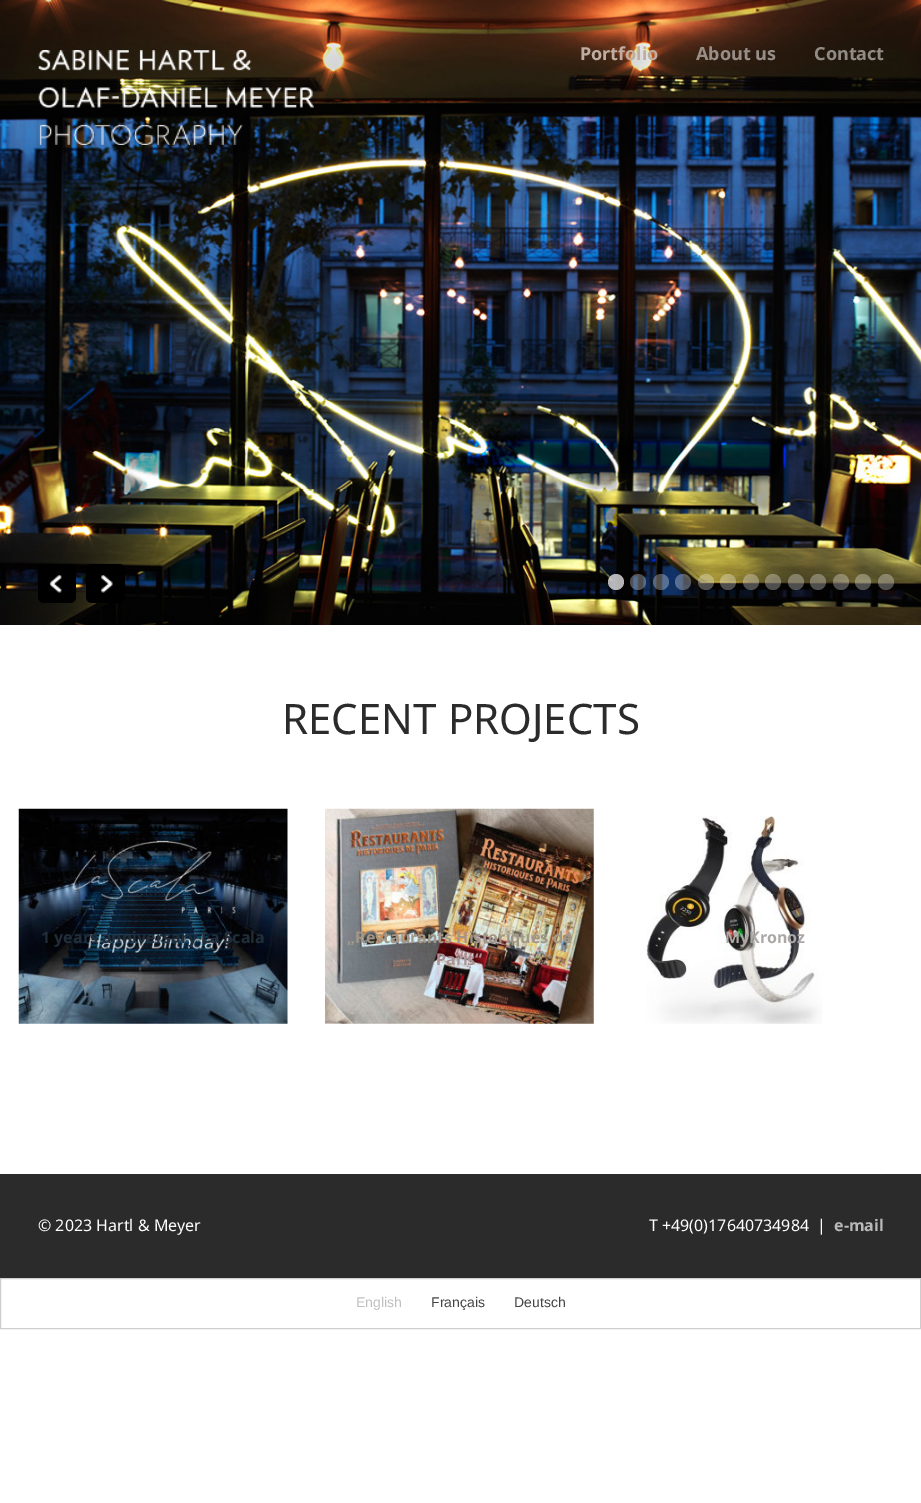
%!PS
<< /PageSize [921 1503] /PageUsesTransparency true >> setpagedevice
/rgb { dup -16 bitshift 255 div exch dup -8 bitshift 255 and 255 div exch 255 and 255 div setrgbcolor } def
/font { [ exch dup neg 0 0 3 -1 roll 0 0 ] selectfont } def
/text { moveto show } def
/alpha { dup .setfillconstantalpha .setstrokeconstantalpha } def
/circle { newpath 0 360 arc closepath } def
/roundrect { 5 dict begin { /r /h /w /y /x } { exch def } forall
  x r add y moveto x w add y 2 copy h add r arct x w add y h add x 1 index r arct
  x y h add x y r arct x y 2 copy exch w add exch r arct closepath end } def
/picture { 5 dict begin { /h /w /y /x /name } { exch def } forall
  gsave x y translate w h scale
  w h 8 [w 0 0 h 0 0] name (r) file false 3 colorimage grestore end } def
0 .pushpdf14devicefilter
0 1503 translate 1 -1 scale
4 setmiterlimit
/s1 { /NotoSans-Bold 18 font 16#BFADA1 rgb } def
/s2 { /NotoSans-Bold 18 font 16#978E88 rgb } def
/s3 { /NotoSans-Bold 18 font 16#908B85 rgb } def
/s4 { /NotoSans-Regular 42 font 16#2B2B2B rgb } def
/s5 { /NotoSans-Bold 16 font 16#212E3A rgb } def
/s6 { /NotoSans-Bold 16 font 16#A29786 rgb } def
/s7 { /NotoSans-Bold 16 font 16#A89396 rgb } def
/s8 { /NotoSans-Bold 16 font 16#AAA7A5 rgb } def
/s9 { /NotoSans-Regular 16 font 16#FFFFFF rgb } def
/s10 { /NotoSans-Bold 16 font 16#BAB8B8 rgb } def
/s11 { /LiberationSans-Regular 14 font 16#BFBFBF rgb } def
/s12 { /LiberationSans-Regular 14 font 16#444444 rgb } def
16#FFFFFF rgb
0 0 921 1503 rectfill
(pic1.raw) 0 0 921 625 picture
16#000000 rgb
38 564 38 39 6 roundrect fill
(pic2.raw) 49 575 13 18 picture
86 564 39 39 6 roundrect fill
(pic3.raw) 101 575 12 18 picture
0.7 alpha
16#FFFFFF rgb
616 582 8 circle fill
0.3 alpha
638 582 8 circle fill
661 582 8 circle fill
683 582 8 circle fill
706 582 8 circle fill
728 582 8 circle fill
751 582 8 circle fill
773 582 8 circle fill
796 582 8 circle fill
818 582 8 circle fill
841 582 8 circle fill
863 582 8 circle fill
886 582 8 circle fill
1 alpha
(pic4.raw) 38 50 276 95 picture
s1
(Portfolio) 580 60 text
s2
(About us) 696 60 text
s3
(Contact) 814 60 text
s4
(RECENT PROJECTS) 282 734 text
(pic5.raw) 18 808 270 216 picture
s5
(1 years anniversary La Scala) 41 943 text
(pic6.raw) 325 808 269 216 picture
s6
(„Restaurants Historiques de) 347 943 text
s7
(Paris“) 436 965 text
(pic7.raw) 646 815 176 209 picture
s8
(MyKronoz) 725 943 text
16#2B2B2B rgb
0 1174 921 104 rectfill
16#2F2F2F rgb
38 1174 846 1 rectfill
s9
(© 2023 Hartl & Meyer) 38 1231 text
(T +49\(0\)17640734984) 649 1231 text
(|) 817 1231 text
s10
(e-mail) 834 1231 text
16#CDCDCD rgb
0.5 1278.5 920 50 rectstroke
s11
(English) 356 1307 text
s12
(Français) 431 1307 text
(Deutsch) 514 1307 text
.poppdf14devicefilter showpage
